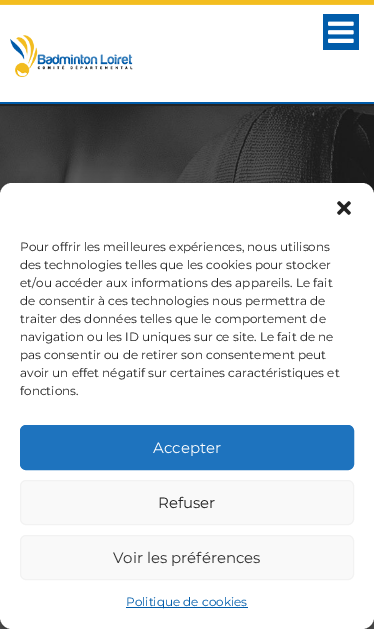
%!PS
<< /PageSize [374 629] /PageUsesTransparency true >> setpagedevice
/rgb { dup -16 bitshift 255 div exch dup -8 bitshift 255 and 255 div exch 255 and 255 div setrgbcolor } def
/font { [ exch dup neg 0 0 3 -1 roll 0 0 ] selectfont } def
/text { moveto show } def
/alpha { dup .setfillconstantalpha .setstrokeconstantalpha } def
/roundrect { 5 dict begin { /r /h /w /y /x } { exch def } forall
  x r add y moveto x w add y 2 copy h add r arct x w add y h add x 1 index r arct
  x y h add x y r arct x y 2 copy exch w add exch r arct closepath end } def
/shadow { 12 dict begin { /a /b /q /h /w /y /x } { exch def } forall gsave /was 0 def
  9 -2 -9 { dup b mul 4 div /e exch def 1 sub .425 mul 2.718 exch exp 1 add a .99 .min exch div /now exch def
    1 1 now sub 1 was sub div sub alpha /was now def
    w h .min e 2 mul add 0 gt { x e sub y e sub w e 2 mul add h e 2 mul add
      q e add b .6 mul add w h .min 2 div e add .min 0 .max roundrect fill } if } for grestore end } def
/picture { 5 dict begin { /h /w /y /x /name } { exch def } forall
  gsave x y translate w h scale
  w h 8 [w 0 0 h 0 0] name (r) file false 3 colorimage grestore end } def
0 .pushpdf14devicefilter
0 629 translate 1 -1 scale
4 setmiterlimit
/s1 { /Montserrat-Regular 12 font 16#222222 rgb } def
/s2 { /Montserrat-Regular 15 font 16#FFFFFF rgb } def
/s3 { /Montserrat-Regular 15 font 16#222222 rgb } def
/s4 { /Montserrat-Regular 15 font 16#333333 rgb } def
/s5 { /Montserrat-Regular 12 font 16#005CAA rgb } def
16#242424 rgb
0 0 374 629 rectfill
16#FFFFFF rgb
0 5 374 97 rectfill
16#005CAA rgb
0 102 374 2 rectfill
16#F3BD1F rgb
0 0 374 4 rectfill
16#F4C435 rgb
0 4 374 1 rectfill
(pic1.raw) 10 35 123 42 picture
16#005CAA rgb
323 14 36 36 rectfill
(pic2.raw) 328 21 26 22 picture
(pic3.raw) 0 106 374 89 picture
16#595959 rgb
0 617 374 12 rectfill
16#000000 rgb
0 189 374 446 12 3 0.23 shadow
0 193 374 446 12 10 0.19 shadow
16#FFFFFF rgb
0 183 374 446 12 roundrect fill
(pic4.raw) 337 201 14 14 picture
s1
(Pour offrir les meilleures expériences, nous utilisons) 20 251 text
(des technologies telles que les cookies pour stocker) 20 269 text
(et/ou accéder aux informations des appareils. Le fait) 20 287 text
(de consentir à ces technologies nous permettra de) 20 305 text
(traiter des données telles que le comportement de) 20 323 text
(navigation ou les ID uniques sur ce site. Le fait de ne) 20 341 text
(pas consentir ou de retirer son consentement peut) 20 359 text
(avoir un effet négatif sur certaines caractéristiques et) 20 377 text
(fonctions.) 20 395 text
16#1E73BE rgb
20.5 425.5 333 44 5.5 roundrect gsave fill grestore
stroke
s2
(Accepter) 153 453 text
16#F9F9F9 rgb
20.5 480.5 333 44 5.5 roundrect gsave fill grestore
16#F2F2F2 rgb
stroke
s3
(Refuser) 158 508 text
16#F9F9F9 rgb
20.5 535.5 333 44 5.5 roundrect gsave fill grestore
16#F2F2F2 rgb
stroke
s4
(Voir les préférences) 113 563 text
16#005CAA rgb
126 607 122 1 rectfill
s5
(Politique de cookies) 126 606 text
.poppdf14devicefilter showpage
